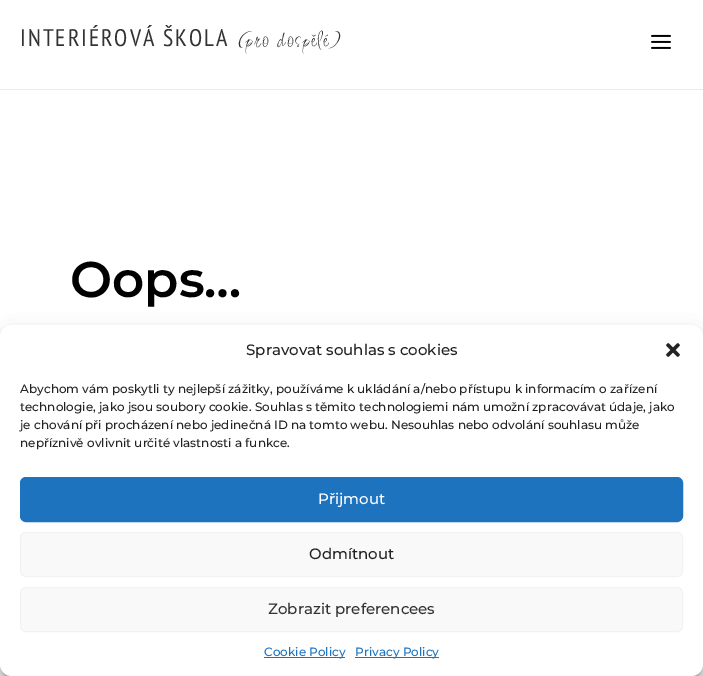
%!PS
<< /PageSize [703 676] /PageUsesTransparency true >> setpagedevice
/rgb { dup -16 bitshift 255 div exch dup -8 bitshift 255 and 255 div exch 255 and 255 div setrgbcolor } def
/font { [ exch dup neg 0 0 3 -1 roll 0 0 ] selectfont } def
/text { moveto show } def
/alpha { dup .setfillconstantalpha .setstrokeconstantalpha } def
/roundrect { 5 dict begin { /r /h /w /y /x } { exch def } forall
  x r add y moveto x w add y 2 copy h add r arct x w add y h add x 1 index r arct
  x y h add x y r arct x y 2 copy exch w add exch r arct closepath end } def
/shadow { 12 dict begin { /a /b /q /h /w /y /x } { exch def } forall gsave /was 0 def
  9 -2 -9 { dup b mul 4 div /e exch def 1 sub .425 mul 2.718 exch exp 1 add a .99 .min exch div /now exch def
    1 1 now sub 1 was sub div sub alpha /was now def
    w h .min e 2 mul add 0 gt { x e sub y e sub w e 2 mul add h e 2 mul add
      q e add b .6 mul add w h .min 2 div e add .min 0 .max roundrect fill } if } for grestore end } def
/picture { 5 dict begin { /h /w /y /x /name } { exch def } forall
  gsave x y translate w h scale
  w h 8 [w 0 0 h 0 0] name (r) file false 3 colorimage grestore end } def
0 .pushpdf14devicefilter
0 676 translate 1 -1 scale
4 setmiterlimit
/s1 { /Montserrat-SemiBold 50 font 16#000000 rgb } def
/s2 { /Montserrat-Medium 15 font 16#222222 rgb } def
/s3 { /Montserrat-Medium 12 font 16#222222 rgb } def
/s4 { /Montserrat-Medium 15 font 16#FFFFFF rgb } def
/s5 { /Montserrat-Medium 15 font 16#333333 rgb } def
/s6 { /Montserrat-Medium 12 font 16#1E73BE rgb } def
16#FFFFFF rgb
0 0 703 676 rectfill
16#EBEBEB rgb
0 89 703 1 rectfill
/PTSansNarrow-Regular 24 font
16#333333 rgb
20 46 moveto 2 0 (INTERIÉROVÁ ŠKOLA) ashow
/Inspiration-Regular 24 font
237 46 moveto -1 0 32 2 0 (\(pro dospělé\)) awidthshow
(pic1.raw) 651 34 20 15 picture
s1
(Oops…) 70 297 text
0 331 703 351 12 3 0.23 shadow
0 335 703 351 12 10 0.19 shadow
16#FFFFFF rgb
0 325 703 351 12 roundrect fill
s2
(Spravovat souhlas s cookies) 246 355 text
(pic2.raw) 666 343 14 14 picture
s3
(Abychom vám poskytli ty nejlepší zážitky, používáme k ukládání a/nebo přístupu k informacím o zařízení) 20 393 text
(technologie, jako jsou soubory cookie. Souhlas s těmito technologiemi nám umožní zpracovávat údaje, jako) 20 411 text
(je chování při procházení nebo jedinečná ID na tomto webu. Nesouhlas nebo odvolání souhlasu může) 20 429 text
(nepříznivě ovlivnit určité vlastnosti a funkce.) 20 447 text
16#1E73BE rgb
20.5 477.5 662 44 5.5 roundrect gsave fill grestore
stroke
s4
(Přijmout) 318 504 text
16#F9F9F9 rgb
20.5 532.5 662 44 5.5 roundrect gsave fill grestore
16#F2F2F2 rgb
stroke
s2
(Odmítnout) 309 559 text
16#F9F9F9 rgb
20.5 587.5 662 44 5.5 roundrect gsave fill grestore
16#F2F2F2 rgb
stroke
s5
(Zobrazit preferencees) 268 614 text
16#1E73BE rgb
264 657 81 1 rectfill
s6
(Cookie Policy) 264 656 text
355 657 84 1 rectfill
(Privacy Policy) 355 656 text
.poppdf14devicefilter showpage
